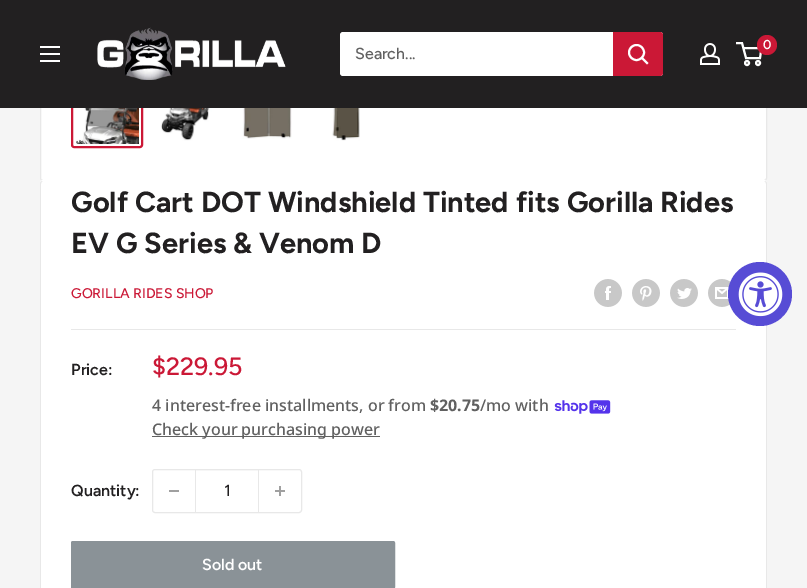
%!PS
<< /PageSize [807 588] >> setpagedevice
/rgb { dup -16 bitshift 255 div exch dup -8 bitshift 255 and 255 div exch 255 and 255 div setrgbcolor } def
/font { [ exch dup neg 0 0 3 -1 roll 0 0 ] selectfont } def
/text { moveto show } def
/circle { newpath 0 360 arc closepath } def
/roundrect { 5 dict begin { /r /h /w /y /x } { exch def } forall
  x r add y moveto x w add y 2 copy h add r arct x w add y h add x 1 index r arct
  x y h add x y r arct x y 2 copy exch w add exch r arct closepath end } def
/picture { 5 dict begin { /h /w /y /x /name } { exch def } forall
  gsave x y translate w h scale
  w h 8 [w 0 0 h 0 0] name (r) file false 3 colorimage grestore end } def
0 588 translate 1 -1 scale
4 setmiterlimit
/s1 { /Figtree-SemiBold 13 font 16#FFFFFF rgb } def
/s2 { /Figtree-Medium 16 font 16#616161 rgb } def
/s3 { /Figtree-Bold 29 font 16#222021 rgb } def
/s4 { /Figtree-Medium 14 font 16#CB1836 rgb } def
/s5 { /Figtree-SemiBold 16 font 16#222021 rgb } def
/s6 { /Figtree-Medium 25 font 16#CB1836 rgb } def
/s7 { /NotoSans-Medium 16 font 16#616161 rgb } def
/s8 { /NotoSans-Bold 16 font 16#616161 rgb } def
/s9 { /Figtree-Medium 16 font 16#222021 rgb } def
/s10 { /Figtree-SemiBold 16 font 16#FFFFFF rgb } def
16#F5F5F5 rgb
0 0 807 588 rectfill
16#FFFFFF rgb
40.5 -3.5 726 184 2.5 roundrect gsave fill grestore
16#E8E8E8 rgb
stroke
16#CB1836 rgb
2 setlinewidth
72 77 70 70 2 roundrect stroke
16#222021 rgb
0 0 807 108 rectfill
(pic1.raw) 97 27 189 53 picture
(pic2.raw) 700 43 20 22 picture
16#FFFFFF rgb
747 63 2 circle stroke
758 63 2 circle stroke
743.5 48 moveto 761.5 48 lineto 760 58 lineto 746 58 lineto 742 43 lineto 736 43 lineto stroke
16#CB1836 rgb
767 45 10 circle fill
s1
(0) 763 49 text
(pic3.raw) 40 46 20 16 picture
340 32 323 44 3 roundrect fill
s2
(Search...) 355 59 text
16#CB1836 rgb
613 32 moveto 660 32 lineto 661.5 32 663 33.5 663 35 curveto 663 73 lineto 663 74.5 661.5 76 660 76 curveto 613 76 lineto closepath fill
16#FFFFFF rgb
2 setlinecap
647 63 moveto 642 58 lineto stroke
0 setlinecap
636.5 52.5 7.5 circle stroke
(pic4.raw) 76 108 63 36 picture
(pic5.raw) 156 108 56 33 picture
(pic6.raw) 236 108 56 31 picture
(pic7.raw) 316 108 44 33 picture
43 180 moveto 41 180 40 182 40 184 curveto 40 182 41 181 43 181 curveto 764 181 lineto 766 181 767 182 767 184 curveto 767 182 766 180 764 180 curveto closepath fill
40 181 727 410 3 roundrect fill
16#E8E8E8 rgb
43 181 moveto 764 181 lineto 766 181 767 182 767 184 curveto 767 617 lineto 767 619 766 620 764 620 curveto 43 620 lineto 41 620 40 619 40 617 curveto 40 184 lineto 40 182 41 181 43 181 curveto closepath 43 181 moveto 764 181 lineto 765 181 766 182 766 184 curveto 766 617 lineto 766 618 765 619 764 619 curveto 43 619 lineto 42 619 41 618 41 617 curveto 41 184 lineto 41 182 42 181 43 181 curveto closepath eofill
s3
(Golf Cart DOT Windshield Tinted fits Gorilla Rides) 71 212 text
(EV G Series & Venom D) 71 253 text
s4
(GORILLA RIDES SHOP) 71 298 text
(pic8.raw) 594 279 28 28 picture
(pic9.raw) 632 279 28 28 picture
(pic10.raw) 670 279 28 28 picture
(pic11.raw) 708 279 23 28 picture
16#E8E8E8 rgb
71 329 665 1 rectfill
s5
(Price:) 71 375 text
s6
($229.95) 152 375 text
s7
(4 interest-free installments, or from) 152 411 text
s8
($20.75) 430 411 text
s7
(/mo with) 480 411 text
(pic12.raw) 554 400 57 14 picture
152 436 228 1 rectfill
(Check your purchasing power) 152 435 text
s5
(Quantity:) 71 496 text
16#E8E8E8 rgb
1 setlinewidth
152.5 469.5 149 43 2.5 roundrect stroke
16#A0A0A0 rgb
169 490 10 2 rectfill
16#F6F6F6 rgb
196 470 62 1 rectfill
16#E8E8E8 rgb
258 470 1 42 rectfill
195 470 1 42 rectfill
s9
(1) 224 496 text
(pic13.raw) 275 486 10 10 picture
16#8A9297 rgb
71.5 541.5 323 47 1.5 roundrect gsave fill grestore
stroke
s10
(Sold out) 202 570 text
16#574CD5 rgb
760 294 32 circle fill
(pic14.raw) 738 272 45 45 picture
showpage
